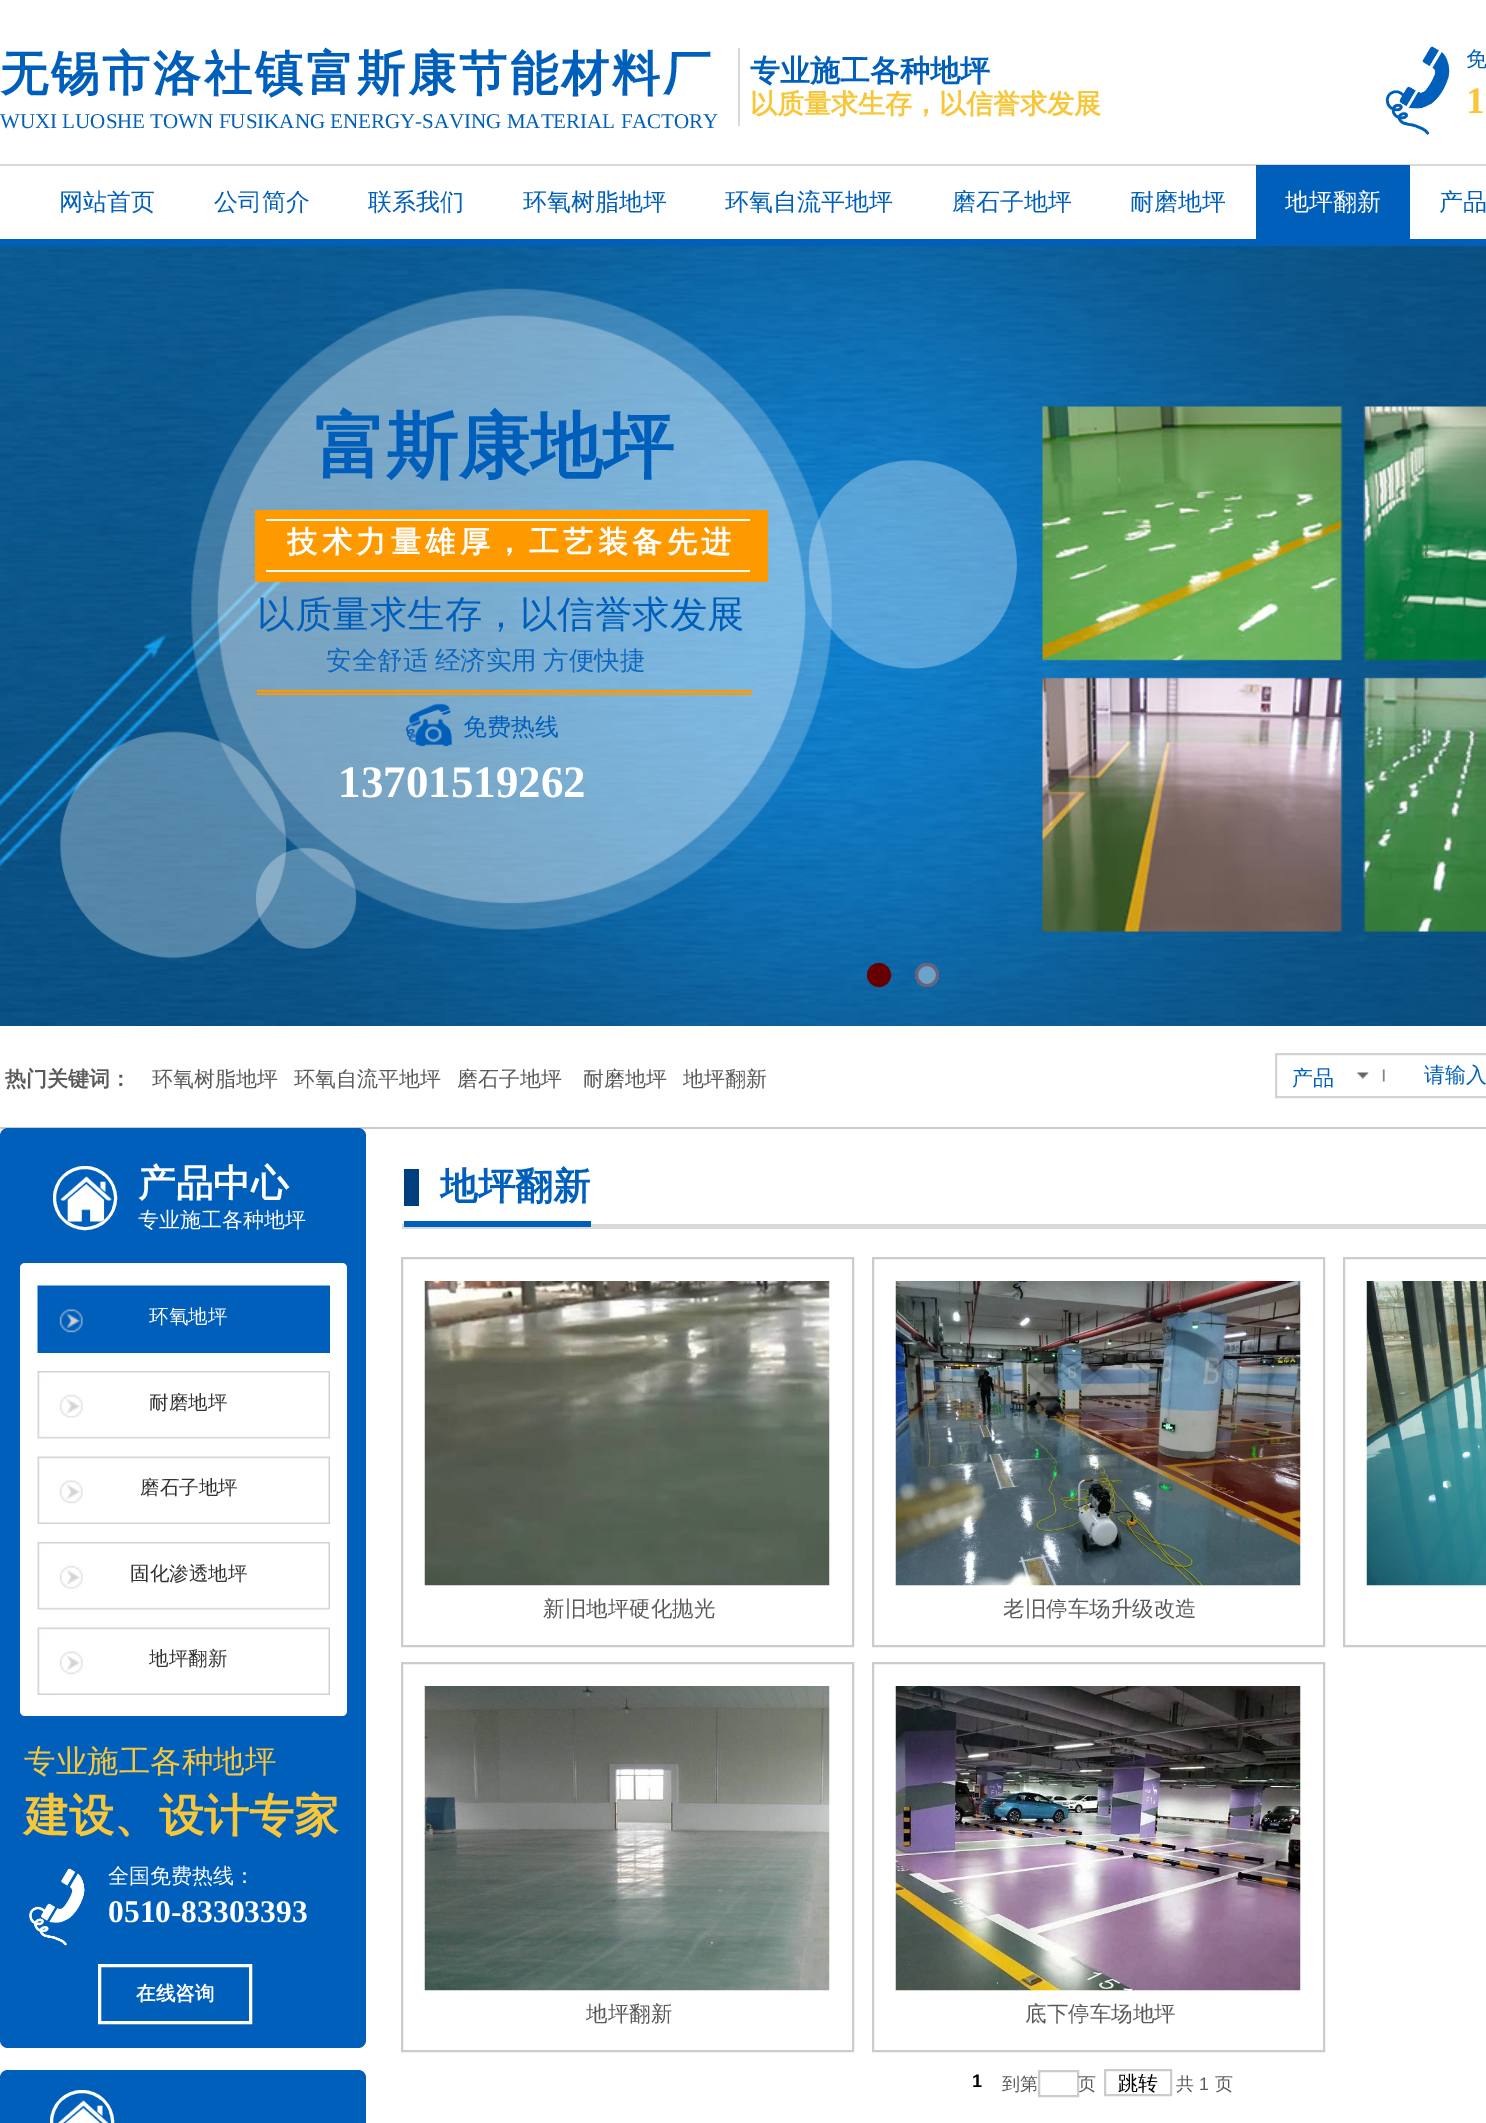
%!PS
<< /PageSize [1486 2123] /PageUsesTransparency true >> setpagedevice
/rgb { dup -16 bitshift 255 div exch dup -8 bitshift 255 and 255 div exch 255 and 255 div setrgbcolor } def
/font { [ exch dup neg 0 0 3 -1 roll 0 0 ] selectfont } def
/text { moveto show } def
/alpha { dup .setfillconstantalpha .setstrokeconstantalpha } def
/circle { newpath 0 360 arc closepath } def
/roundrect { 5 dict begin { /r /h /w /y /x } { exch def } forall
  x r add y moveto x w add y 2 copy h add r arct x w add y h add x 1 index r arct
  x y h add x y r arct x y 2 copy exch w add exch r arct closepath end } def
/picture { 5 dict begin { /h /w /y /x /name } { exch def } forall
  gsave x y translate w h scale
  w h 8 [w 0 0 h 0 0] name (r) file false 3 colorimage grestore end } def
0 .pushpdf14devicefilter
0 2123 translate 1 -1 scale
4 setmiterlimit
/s1 { /WenQuanYiZenHei-Bold 30 font 16#005FBB rgb } def
/s2 { /WenQuanYiZenHei-Medium 21 font 16#005FBB rgb } def
/s3 { /LiberationSerif-Bold 37.5 font 16#F7C639 rgb } def
/s4 { /WenQuanYiZenHei-Bold 27 font 16#F7C639 rgb } def
/s5 { /LiberationSerif-Regular 21 font 16#005FBB rgb } def
/s6 { /WenQuanYiZenHei-Medium 24 font 16#005FBB rgb } def
/s7 { /WenQuanYiZenHei-Medium 24 font 16#FFFFFF rgb } def
/s8 { /WenQuanYiZenHei-Bold 72 font 16#005FBB rgb } def
/s9 { /WenQuanYiZenHei-Medium 37.5 font 16#005FBB rgb } def
/s10 { /LiberationSerif-Bold 45 font 16#FFFFFF rgb } def
/s11 { /WenQuanYiZenHei-Bold 21 font 16#5A5A5A rgb } def
/s12 { /WenQuanYiZenHei-Medium 21 font 16#5A5A5A rgb } def
/s13 { /WenQuanYiZenHei-Bold 37.5 font 16#FFFFFF rgb } def
/s14 { /WenQuanYiZenHei-Bold 37.5 font 16#005FBB rgb } def
/s15 { /WenQuanYiZenHei-Medium 21 font 16#FFFFFF rgb } def
/s16 { /WenQuanYiZenHei-Medium 19.5 font 16#FFFFFF rgb } def
/s17 { /WenQuanYiZenHei-Medium 19.5 font 16#333333 rgb } def
/s18 { /WenQuanYiZenHei-Medium 31.5 font 16#F7C639 rgb } def
/s19 { /WenQuanYiZenHei-Bold 45 font 16#F7C639 rgb } def
/s20 { /WenQuanYiZenHei-Medium 21.5 font 16#5A5A5A rgb } def
/s21 { /LiberationSans-Bold 18 font 16#000000 rgb } def
/s22 { /WenQuanYiZenHei-Medium 18 font 16#5A5A5A rgb } def
/s23 { /WenQuanYiZenHei-Medium 20 font 16#000000 rgb } def
/s24 { /LiberationSans-Regular 18 font 16#5A5A5A rgb } def
/s25 { /LiberationSerif-Bold 31.5 font 16#FFFFFF rgb } def
/s26 { /WenQuanYiZenHei-Bold 19.5 font 16#FFFFFF rgb } def
16#FFFFFF rgb
0 0 1486 2123 rectfill
/WenQuanYiZenHei-Bold 48 font
16#005FBB rgb
0 90 moveto 3 0 (无锡市洛社镇富斯康节能材料厂) ashow
16#D9D9D9 rgb
738 48 2 78 rectfill
s1
(专业施工各种地坪) 750 81 text
(pic1.raw) 1385 46 65 89 picture
s2
(免) 1466 66 text
s3
(1) 1466 113 text
s4
(以质量求生存，以信誉求发展) 750 113 text
s5
(WUXI LUOSHE TOWN FUSIKANG ENERGY-SAVING MATERIAL FACTORY) 0 128 text
16#D9D9D9 rgb
0 164 1486 2 rectfill
s6
(网站首页) 59 210 text
(公司简介) 214 210 text
(联系我们) 368 210 text
(环氧树脂地坪) 523 210 text
(环氧自流平地坪) 725 210 text
(磨石子地坪) 952 210 text
(耐磨地坪) 1130 210 text
1256 165 154 74 rectfill
s7
(地坪翻新) 1285 210 text
s6
(产品) 1439 210 text
0 239 1486 7 rectfill
(pic2.raw) 0 246 1486 780 picture
16#660000 rgb
879 975 10.5 circle gsave fill grestore
3 setlinewidth
stroke
0.4 alpha
16#FFFFFF rgb
927 975 12 circle fill
16#660000 rgb
927 975 10.5 circle stroke
1 alpha
(pic3.raw) 191 288 641 642 picture
(pic4.raw) 217 315 589 589 picture
s8
(富斯康地坪) 314 471 text
16#FF9900 rgb
255 510 513 72 rectfill
16#FFFFFF rgb
266 519 484 2 rectfill
(pic5.raw) 808 460 209 209 picture
/WenQuanYiZenHei-Bold 30 font
287 552 moveto 4.5 0 (技术力量雄厚，工艺装备先进) ashow
266 570 484 2 rectfill
s9
(以质量求生存，以信誉求发展) 257 627 text
/WenQuanYiZenHei-Medium 25.5 font
16#0E67BE rgb
326 669 moveto -1 0 32 (安全舒适 经济实用 方便快捷) widthshow
16#FF9900 rgb
257 690 495 2 rectfill
257 693 495 2 rectfill
(pic6.raw) 406 703 47 44 picture
s6
(免费热线) 463 735 text
(pic7.raw) 60 731 227 228 picture
s10
(13701519262) 338 797 text
(pic8.raw) 256 848 101 101 picture
s11
(热门关键词：) 5 1086 text
s12
(环氧树脂地坪) 152 1086 text
(环氧自流平地坪) 294 1086 text
(磨石子地坪) 457 1086 text
(耐磨地坪) 583 1086 text
(地坪翻新) 683 1086 text
16#D3D3D3 rgb
2 setlinewidth
1276 1054 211 43 rectstroke
(pic9.raw) 1357 1069 28 13 picture
s2
(产品) 1292 1085 text
(请输入) 1424 1082 text
16#CCCCCC rgb
0 1127 1486 2 rectfill
16#005FBB rgb
0 1128 366 920 8 roundrect fill
16#FFFFFF rgb
3 setlinewidth
85 1198 30.5 circle stroke
(pic10.raw) 60 1176 52 46 picture
s13
(产品中心) 138 1196 text
16#003F7D rgb
404 1169 15 37 rectfill
16#D9D9D9 rgb
402 1224 1084 5 rectfill
s14
(地坪翻新) 440 1199 text
s15
(专业施工各种地坪) 138 1227 text
16#005FBB rgb
404 1221 187 6 rectfill
16#FFFFFF rgb
20 1263 327 453 5 roundrect fill
(pic11.raw) 37 1285 293 68 picture
s16
(环氧地坪) 149 1323 text
(pic12.raw) 37 1371 293 68 picture
s17
(耐磨地坪) 149 1409 text
(pic13.raw) 37 1456 293 68 picture
(磨石子地坪) 140 1494 text
(pic12.raw) 37 1542 293 68 picture
(固化渗透地坪) 130 1580 text
(pic13.raw) 37 1627 293 68 picture
(地坪翻新) 149 1665 text
s18
(专业施工各种地坪) 24 1772 text
s19
(建设、设计专家) 24 1831 text
16#CCCCCC rgb
2 setlinewidth
402 1258 451 388 rectstroke
(pic14.raw) 424 1281 406 305 picture
s20
(新旧地坪硬化抛光) 543 1616 text
16#CCCCCC rgb
873 1258 451 388 rectstroke
(pic15.raw) 895 1281 406 305 picture
s20
(老旧停车场升级改造) 1003 1616 text
16#CCCCCC rgb
1344 1258 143 388 rectstroke
(pic16.raw) 1366 1281 120 305 picture
402 1663 451 388 rectstroke
(pic17.raw) 424 1686 406 305 picture
s20
(地坪翻新) 586 2021 text
16#CCCCCC rgb
873 1663 451 388 rectstroke
(pic18.raw) 895 1686 406 305 picture
s20
(底下停车场地坪) 1025 2021 text
s21
(1) 972 2087 text
s22
(到第) 1002 2090 text
16#CCCCCC rgb
1039 2071 39 25 rectstroke
s22
(页) 1078 2090 text
16#CCCCCC rgb
1105 2070 66 25 rectstroke
s23
(跳转) 1118 2090 text
s22
(共) 1176 2090 text
s24
(1) 1199 2090 text
s22
(页) 1215 2090 text
(pic19.raw) 29 1868 56 78 picture
s15
(全国免费热线：) 108 1883 text
s25
(0510-83303393) 108 1922 text
3 setlinewidth
99.5 1965.5 151 57 rectstroke
s26
(在线咨询) 136 2000 text
16#005FBB rgb
8 2070 moveto 358 2070 lineto 362.5 2070 366 2073.5 366 2078 curveto 366 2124 lineto 0 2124 lineto 0 2078 lineto 0 2073.5 3.5 2070 8 2070 curveto closepath fill
16#FFFFFF rgb
82 2122 30.5 circle stroke
(pic20.raw) 58 2100 51 23 picture
.poppdf14devicefilter showpage
